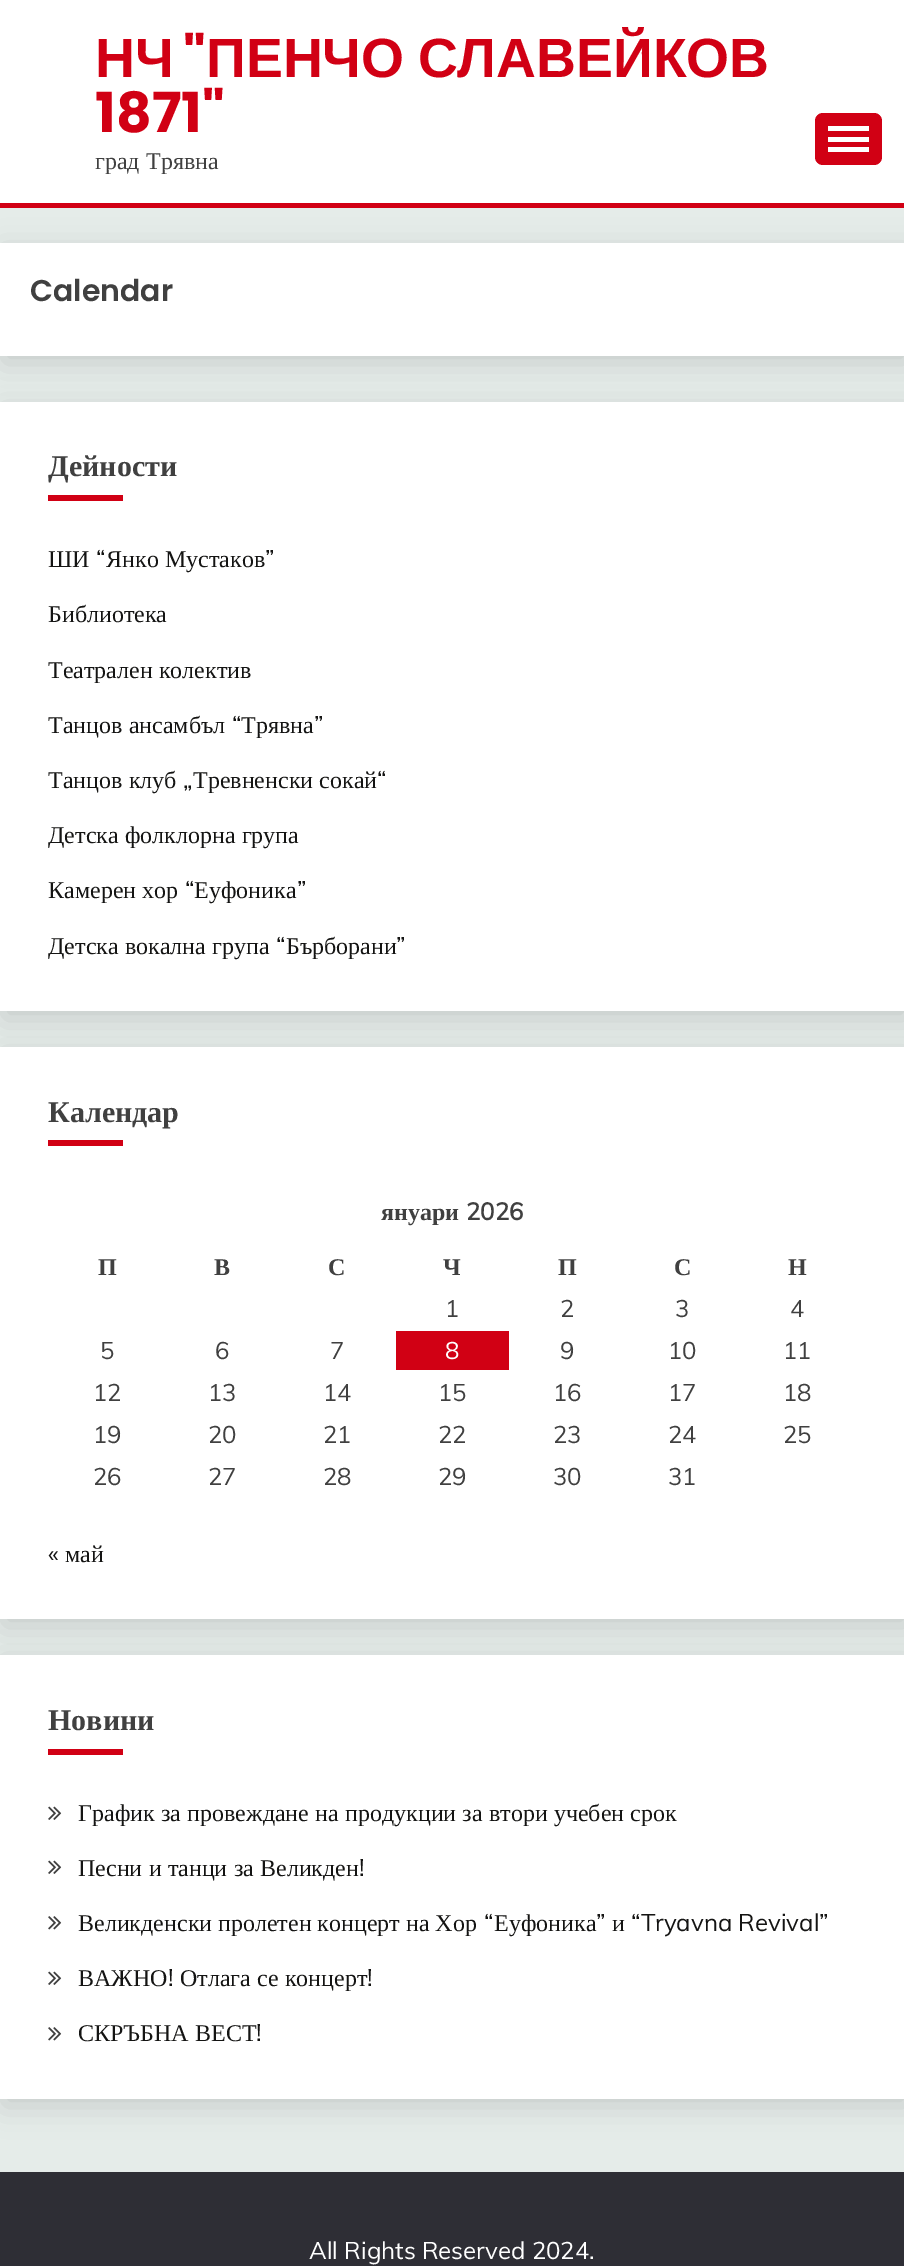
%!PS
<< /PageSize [904 2266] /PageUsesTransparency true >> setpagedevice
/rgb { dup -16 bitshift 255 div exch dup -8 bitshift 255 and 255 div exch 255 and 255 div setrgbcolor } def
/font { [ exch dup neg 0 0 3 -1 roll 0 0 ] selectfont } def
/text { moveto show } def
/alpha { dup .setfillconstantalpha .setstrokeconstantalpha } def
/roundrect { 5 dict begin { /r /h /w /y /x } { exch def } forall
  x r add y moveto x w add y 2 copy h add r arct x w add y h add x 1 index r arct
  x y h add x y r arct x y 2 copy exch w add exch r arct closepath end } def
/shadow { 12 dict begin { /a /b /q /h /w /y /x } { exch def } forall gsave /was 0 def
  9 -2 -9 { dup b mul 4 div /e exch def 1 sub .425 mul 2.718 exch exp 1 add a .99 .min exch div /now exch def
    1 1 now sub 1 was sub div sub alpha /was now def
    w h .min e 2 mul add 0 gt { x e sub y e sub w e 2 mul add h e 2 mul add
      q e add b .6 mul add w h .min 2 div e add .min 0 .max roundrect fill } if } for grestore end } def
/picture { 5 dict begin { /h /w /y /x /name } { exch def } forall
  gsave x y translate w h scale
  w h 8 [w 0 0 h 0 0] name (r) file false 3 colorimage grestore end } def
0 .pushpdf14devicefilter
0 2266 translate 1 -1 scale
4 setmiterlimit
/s1 { /LiberationSans-Bold 55.25 font 16#D10014 rgb } def
/s2 { /Poppins-Bold 55.25 font 16#D10014 rgb } def
/s3 { /Poppins-SemiBold 30 font 16#404040 rgb } def
/s4 { /LiberationSerif-Bold 30 font 16#404040 rgb } def
/s5 { /LiberationSerif-Regular 24 font 16#141413 rgb } def
/s6 { /Muli-Regular 24 font 16#141413 rgb } def
/s7 { /LiberationSerif-Bold 24 font 16#404040 rgb } def
/s8 { /Muli-Bold 24 font 16#404040 rgb } def
/s9 { /Muli-Regular 24 font 16#404040 rgb } def
/s10 { /Muli-Regular 24 font 16#FFFFFF rgb } def
16#E5ECE9 rgb
0 0 904 2266 rectfill
16#FFFFFF rgb
0 0 904 203 rectfill
s1
(НЧ) 95 77 text
s2
(") 183 77 text
/LiberationSans-Bold 55.25 font
206 77 moveto -2 0 32 (ПЕНЧО СЛАВЕЙКОВ) widthshow
s2
(1871") 95 132 text
/LiberationSerif-Regular 24 font
16#404040 rgb
95 169 moveto 0.25 0 32 (град Трявна) widthshow
16#D10014 rgb
815 113 67 52 8 roundrect fill
16#FFFFFF rgb
828 126 41 5 rectfill
828 137 41 5 rectfill
828 147 41 5 rectfill
16#000000 rgb
3 251 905 112 0 15 0.14 shadow
16#D10014 rgb
0 203 904 5 rectfill
16#FFFFFF rgb
0 243 904 113 rectfill
s3
(Calendar) 30 301 text
16#000000 rgb
3 410 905 609 0 15 0.14 shadow
16#FFFFFF rgb
0 402 904 609 rectfill
s4
(Дейности) 48 476 text
16#D10014 rgb
48 495 75 6 rectfill
s5
(ШИ) 48 567 text
s6
(“) 96 567 text
/LiberationSerif-Regular 24 font
106 567 moveto 0.25 0 32 (Янко Мустаков) widthshow
s6
(”) 265 567 text
s5
(Библиотека) 48 622 text
48 678 moveto 0.25 0 32 (Театрален колектив) widthshow
48 733 moveto 0.25 0 32 (Танцов ансамбъл) widthshow
s6
(“) 232 733 text
s5
(Трявна) 241 733 text
s6
(”) 314 733 text
/LiberationSerif-Regular 24 font
48 788 moveto 0.25 0 32 (Танцов клуб) widthshow
s6
(„) 183 788 text
/LiberationSerif-Regular 24 font
193 788 moveto 0.25 0 32 (Тревненски сокай) widthshow
s6
(“) 377 788 text
/LiberationSerif-Regular 24 font
48 843 moveto 0.25 0 32 (Детска фолклорна група) widthshow
48 898 moveto 0.25 0 32 (Камерен хор) widthshow
s6
(“) 185 898 text
s5
(Еуфоника) 194 898 text
s6
(”) 297 898 text
/LiberationSerif-Regular 24 font
48 954 moveto 0.25 0 32 (Детска вокална група) widthshow
s6
(“) 276 954 text
s5
(Бърборани) 286 954 text
s6
(”) 396 954 text
16#000000 rgb
3 1055 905 571 0 15 0.14 shadow
16#FFFFFF rgb
0 1047 904 572 rectfill
s4
(Календар) 48 1122 text
16#D10014 rgb
48 1140 75 6 rectfill
s7
(януари) 381 1220 text
s8
(2026) 466 1220 text
s7
(П) 98 1275 text
(В) 214 1275 text
(С) 328 1275 text
(Ч) 443 1275 text
(П) 558 1275 text
(С) 674 1275 text
(Н) 788 1275 text
s9
(1) 445 1317 text
(2) 560 1317 text
(3) 675 1317 text
(4) 790 1317 text
(5) 100 1359 text
(6) 215 1359 text
(7) 330 1359 text
16#D10014 rgb
396 1331 113 39 rectfill
s10
(8) 445 1359 text
s9
(9) 560 1359 text
(10) 668 1359 text
(11) 783 1359 text
(12) 93 1401 text
(13) 208 1401 text
(14) 323 1401 text
(15) 438 1401 text
(16) 553 1401 text
(17) 668 1401 text
(18) 783 1401 text
(19) 93 1443 text
(20) 208 1443 text
(21) 323 1443 text
(22) 438 1443 text
(23) 553 1443 text
(24) 668 1443 text
(25) 783 1443 text
(26) 93 1485 text
(27) 208 1485 text
(28) 323 1485 text
(29) 438 1485 text
(30) 553 1485 text
(31) 668 1485 text
s6
(«) 48 1562 text
s5
(май) 65 1562 text
16#000000 rgb
3 1662 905 444 0 15 0.14 shadow
16#FFFFFF rgb
0 1655 904 444 rectfill
s4
(Новини) 48 1730 text
16#D10014 rgb
48 1749 75 6 rectfill
(pic1.raw) 48 1806 14 14 picture
/LiberationSerif-Regular 24 font
16#141413 rgb
78 1821 moveto 0.25 0 32 (График за провеждане на продукции за втори учебен срок) widthshow
(pic1.raw) 48 1860 14 14 picture
78 1876 moveto 0.25 0 32 (Песни и танци за Великден) widthshow
s6
(!) 359 1876 text
(pic2.raw) 48 1916 14 14 picture
s5
(Великденски пролетен концерт на Хор) 78 1931 text
s6
(“) 484 1931 text
s5
(Еуфоника) 494 1931 text
s6
(”) 596 1931 text
s5
(и) 612 1931 text
s6
(“Tryavna Revival”) 631 1931 text
(pic1.raw) 48 1971 14 14 picture
s5
(ВАЖНО) 78 1986 text
s6
(!) 168 1986 text
/LiberationSerif-Regular 24 font
180 1986 moveto 0.25 0 32 (Отлага се концерт) widthshow
s6
(!) 367 1986 text
(pic2.raw) 48 2027 14 14 picture
/LiberationSerif-Regular 24 font
78 2041 moveto 0.25 0 32 (СКРЪБНА ВЕСТ) widthshow
s6
(!) 256 2041 text
16#2E2E35 rgb
0 2172 904 94 rectfill
s10
(All Rights Reserved 2024.) 309 2259 text
.poppdf14devicefilter showpage
